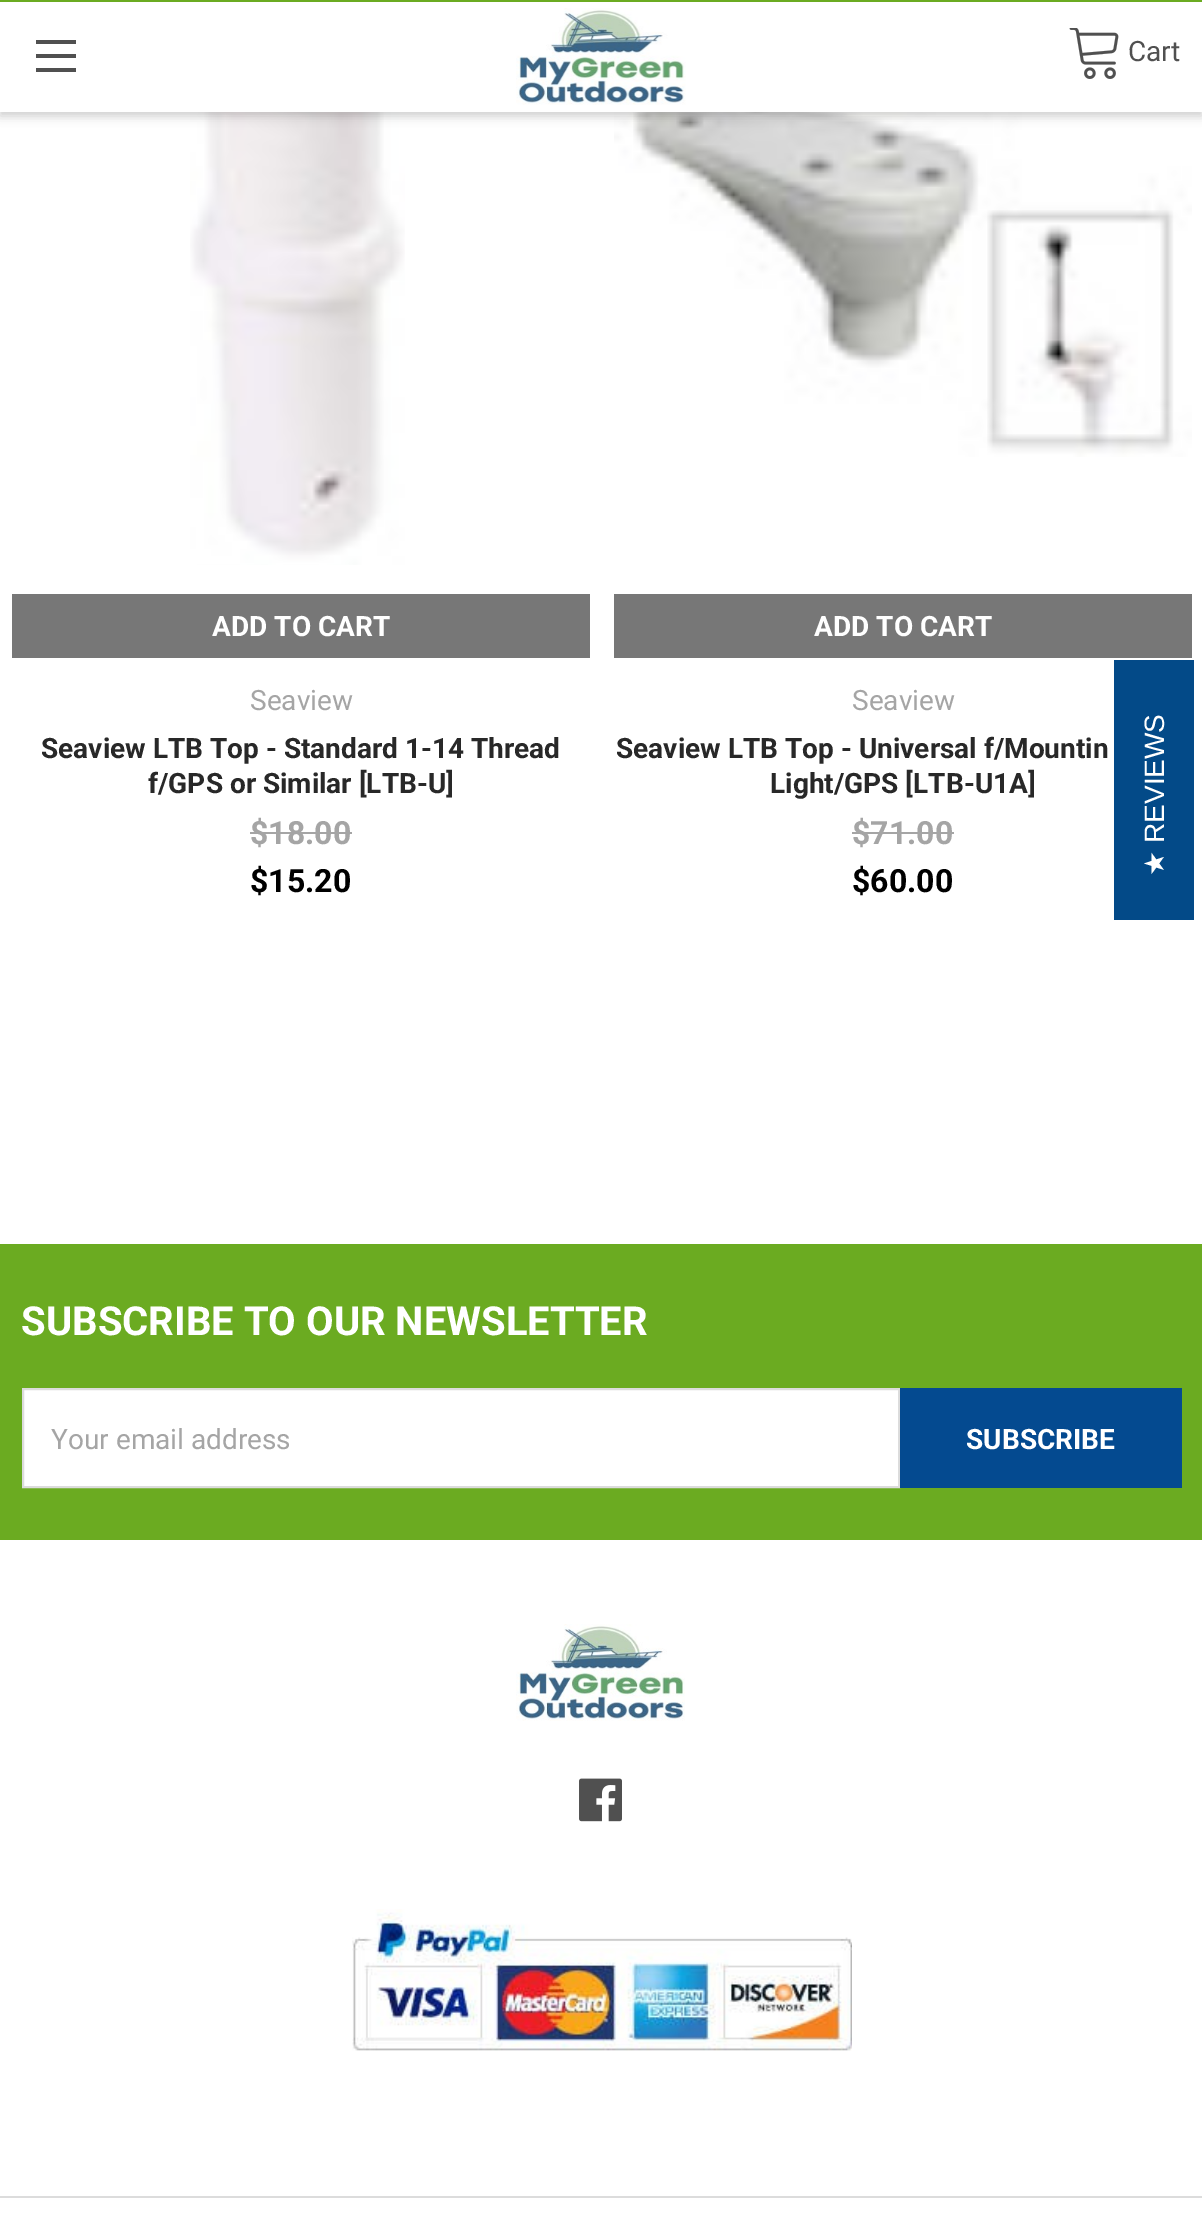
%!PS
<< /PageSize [1202 2214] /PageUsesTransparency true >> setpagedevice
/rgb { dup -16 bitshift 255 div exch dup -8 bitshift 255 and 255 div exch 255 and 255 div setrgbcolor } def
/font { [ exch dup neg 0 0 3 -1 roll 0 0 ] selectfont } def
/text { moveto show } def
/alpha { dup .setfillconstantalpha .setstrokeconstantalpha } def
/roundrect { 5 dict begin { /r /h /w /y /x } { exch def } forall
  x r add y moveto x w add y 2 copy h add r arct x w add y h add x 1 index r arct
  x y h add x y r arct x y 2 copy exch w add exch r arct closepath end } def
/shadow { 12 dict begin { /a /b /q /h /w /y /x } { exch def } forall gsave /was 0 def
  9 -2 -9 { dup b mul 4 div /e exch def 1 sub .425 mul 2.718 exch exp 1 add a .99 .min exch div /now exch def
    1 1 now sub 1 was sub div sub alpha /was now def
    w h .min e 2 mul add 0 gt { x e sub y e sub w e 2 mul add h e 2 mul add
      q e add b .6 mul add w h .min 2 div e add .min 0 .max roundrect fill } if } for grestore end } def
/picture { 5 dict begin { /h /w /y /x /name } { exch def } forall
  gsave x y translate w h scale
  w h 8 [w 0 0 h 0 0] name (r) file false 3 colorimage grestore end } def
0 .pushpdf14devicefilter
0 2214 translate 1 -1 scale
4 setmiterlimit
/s1 { /Roboto-Regular 28 font 16#505050 rgb } def
/s2 { /Roboto-Bold 28 font 16#FFFFFF rgb } def
/s3 { /Roboto-Regular 28 font 16#A5A5A5 rgb } def
/s4 { /Roboto-Bold 28 font 16#282828 rgb } def
/s5 { /Roboto-Bold 32 font 16#A5A5A5 rgb } def
/s6 { /Roboto-Bold 32 font 16#000000 rgb } def
/s7 { /Roboto-Bold 40 font 16#FFFFFF rgb } def
16#FFFFFF rgb
0 0 1202 2214 rectfill
(pic3.raw) 190 112 215 453 picture
(pic4.raw) 614 112 578 345 picture
16#000000 rgb
0 4 1202 112 0 5 0.2 shadow
16#FFFFFF rgb
0 2 1202 110 rectfill
16#6BAB21 rgb
0 0 1202 2 rectfill
16#505050 rgb
36 54 40 4 rectfill
36 40 40 4 rectfill
36 68 40 4 rectfill
(pic1.raw) 516 8 170 97 picture
(pic2.raw) 1069 28 50 51 picture
s1
(Cart) 1128 61 text
16#777777 rgb
12 594 578 64 rectfill
s2
(ADD TO CART) 212 636 text
s3
(Seaview) 250 710 text
s4
(Seaview LTB Top - Standard 1-14 Thread) 41 758 text
(f/GPS or Similar [LTB-U]) 148 793 text
s5
($18.00) 250 844 text
250 832 102 2 rectfill
s6
($15.20) 250 892 text
16#777777 rgb
614 594 578 64 rectfill
s2
(ADD TO CART) 814 636 text
s3
(Seaview) 852 710 text
s4
(Seaview LTB Top - Universal f/Mountin) 616 758 text
(Light/GPS [LTB-U1A]) 770 793 text
s5
($71.00) 852 844 text
852 832 102 2 rectfill
s6
($60.00) 852 892 text
16#034A88 rgb
1114 660 80 260 rectfill
/LiberationSans-Regular 28 font
16#FFFFFF rgb
gsave 1164 843 translate -90 rotate 0 0 moveto (REVIEWS) show grestore
/DejaVuSans-Regular 28 font
gsave 1164 876 translate -90 rotate 0 0 moveto (★) show grestore
16#6BAB21 rgb
0 1244 1202 296 rectfill
s7
(SUBSCRIBE TO OUR NEWSLETTER) 21 1335 text
23 1389 moveto 899 1389 lineto 899 1487 lineto 23 1487 lineto closepath gsave fill grestore
16#DCDCDC rgb
2 setlinewidth
stroke
s3
(Your email address) 51 1449 text
16#044A90 rgb
900 1388 282 100 rectfill
s2
(SUBSCRIBE) 966 1449 text
16#DCDCDC rgb
0 2196 1202 2 rectfill
(pic5.raw) 516 1624 169 97 picture
(pic6.raw) 579 1778 43 44 picture
(pic7.raw) 352 1909 500 142 picture
.poppdf14devicefilter showpage
